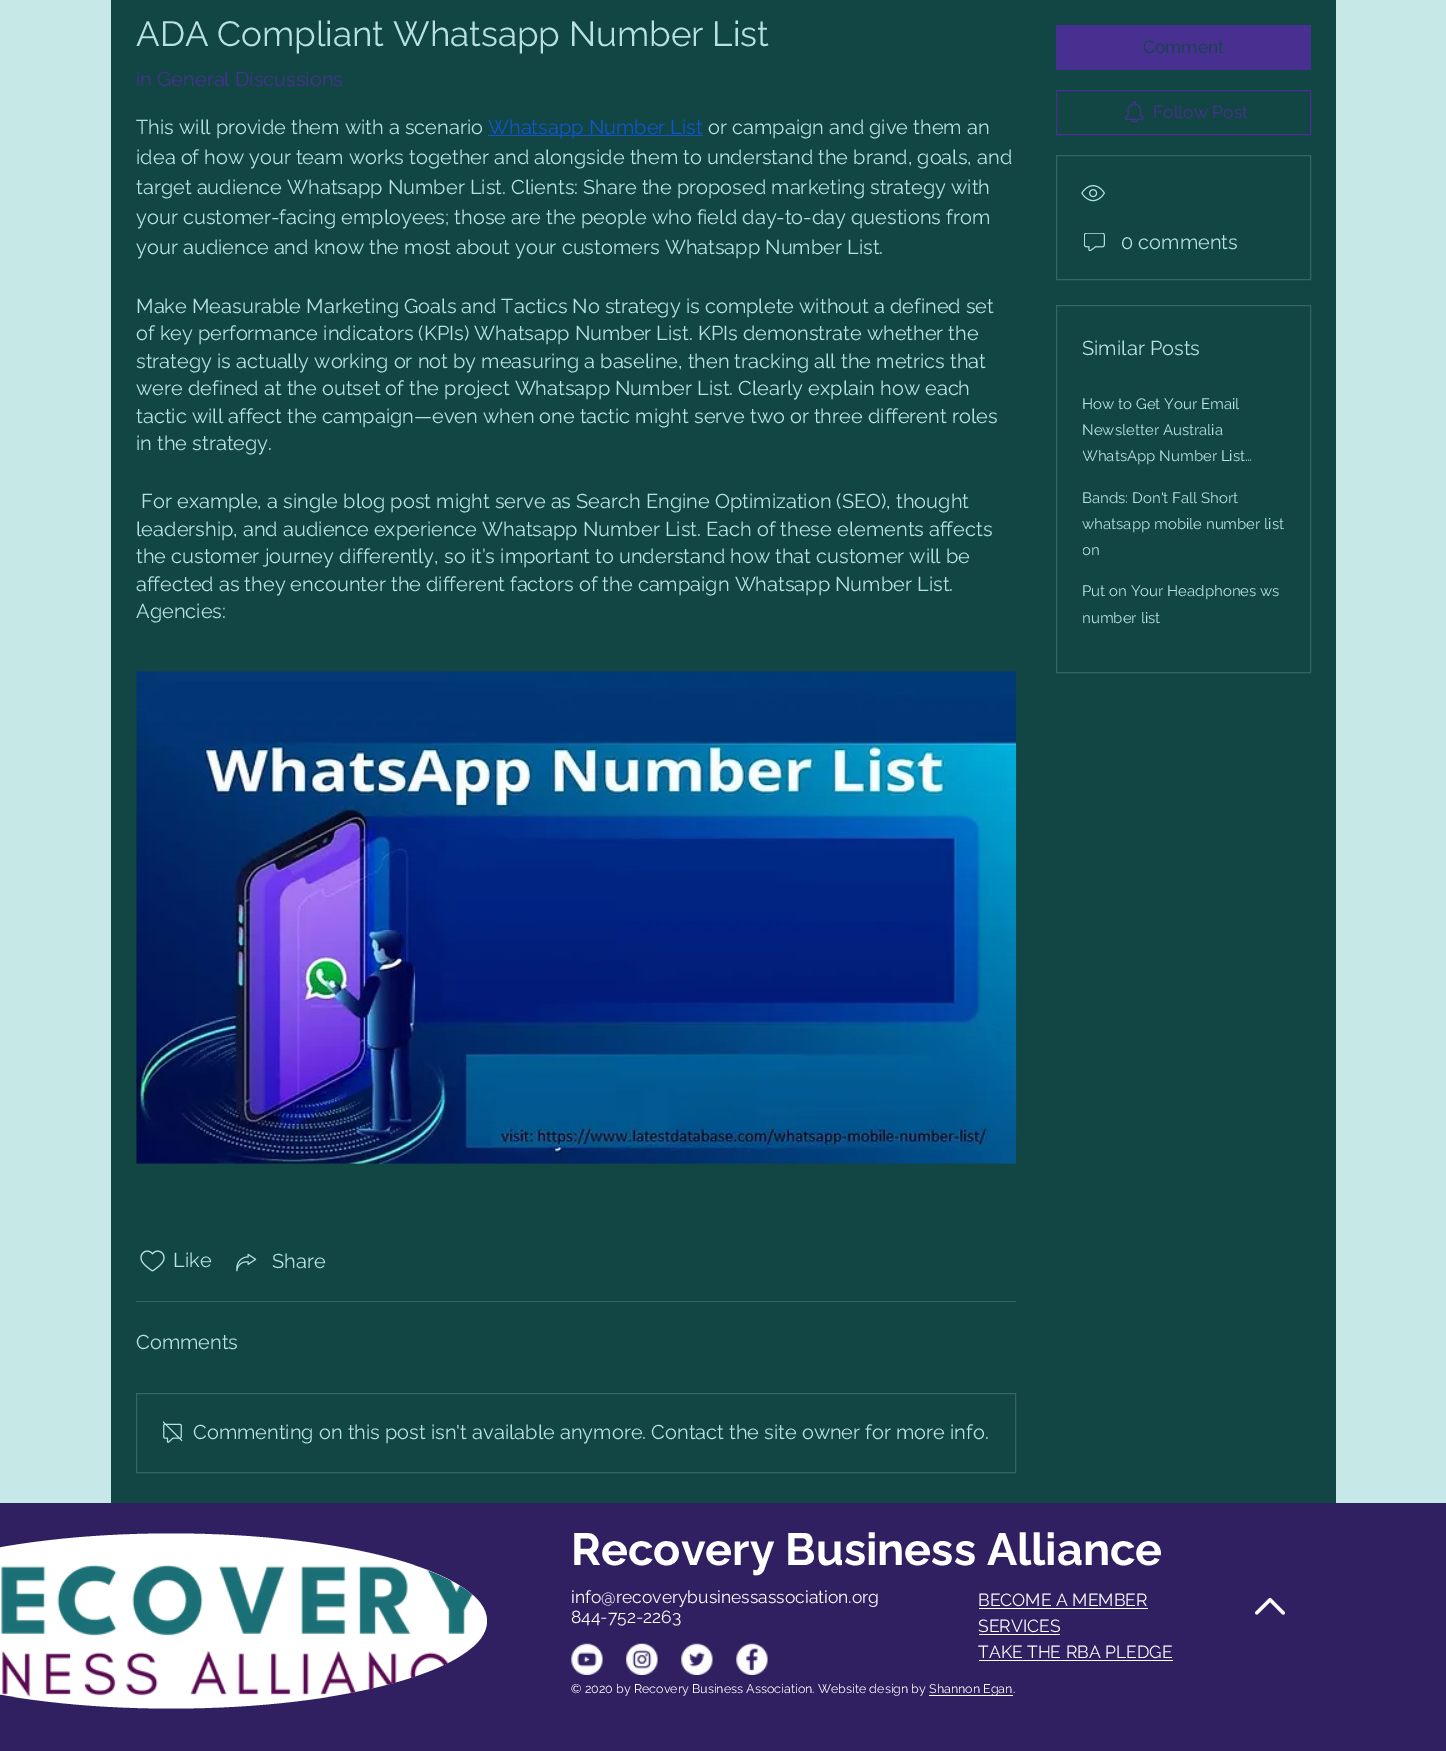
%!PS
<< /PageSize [1446 1751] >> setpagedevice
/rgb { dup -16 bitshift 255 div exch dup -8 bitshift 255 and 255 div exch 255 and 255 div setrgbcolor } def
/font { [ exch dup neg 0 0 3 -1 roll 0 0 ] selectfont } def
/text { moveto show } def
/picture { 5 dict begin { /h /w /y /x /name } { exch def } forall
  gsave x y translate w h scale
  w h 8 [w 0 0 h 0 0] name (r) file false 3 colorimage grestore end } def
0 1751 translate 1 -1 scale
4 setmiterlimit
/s1 { /Raleway-Regular 35 font 16#B8E2E1 rgb } def
/s2 { /Raleway-Regular 20 font 16#483091 rgb } def
/s3 { /Raleway-Regular 20 font 16#B8E2E1 rgb } def
/s4 { /Raleway-Regular 20 font 16#1155CC rgb } def
/s5 { /Raleway-Regular 17.5 font 16#124644 rgb } def
/s6 { /Raleway-Regular 17.5 font 16#483091 rgb } def
/s7 { /Raleway-Regular 15 font 16#B8E2E1 rgb } def
/s8 { /Raleway-Bold 45 font 16#FFFFFF rgb } def
/s9 { /Raleway-Regular 17.5 font 16#FFFFFF rgb } def
/s10 { /Raleway-Regular 12.5 font 16#FFFFFF rgb } def
16#C6E8E7 rgb
0 0 1446 1751 rectfill
16#124644 rgb
111 0 1225 1503 rectfill
s1
(ADA Compliant Whatsapp Number List) 136 46 text
s2
(in General Discussions) 136 86 text
s3
(This will provide them with a scenario) 136 134 text
16#1155CC rgb
488 135 215 1 rectfill
(Whatsapp Number List) 488 134 text
s3
(or campaign and give them an) 708 134 text
(idea of how your team works together and alongside them to understand the brand, goals, and) 136 164 text
(target audience Whatsapp Number List. Clients: Share the proposed marketing strategy with) 136 194 text
(your customer-facing employees; those are the people who field day-to-day questions from) 136 224 text
(your audience and know the most about your customers Whatsapp Number List.) 136 254 text
(Make Measurable Marketing Goals and Tactics No strategy is complete without a defined set) 136 313 text
(of key performance indicators \(KPIs\) Whatsapp Number List. KPIs demonstrate whether the) 136 340 text
(strategy is actually working or not by measuring a baseline, then tracking all the metrics that) 136 368 text
(were defined at the outset of the project Whatsapp Number List. Clearly explain how each) 136 395 text
(tactic will affect the campaign—even when one tactic might serve two or three different roles) 136 423 text
(in the strategy.) 136 450 text
(For example, a single blog post might serve as Search Engine Optimization \(SEO\), thought) 141 508 text
(leadership, and audience experience Whatsapp Number List. Each of these elements affects) 136 536 text
(the customer journey differently, so it’s important to understand how that customer will be) 136 563 text
(affected as they encounter the different factors of the campaign Whatsapp Number List.) 136 591 text
(Agencies:) 136 618 text
(pic1.raw) 136 671 881 493 picture
(pic2.raw) 140 1250 25 22 picture
(Like) 173 1267 text
(pic3.raw) 236 1253 21 19 picture
(Share) 272 1268 text
16#336563 rgb
136 1301 880 1 rectfill
s3
(Comments) 136 1349 text
16#336563 rgb
136.5 1393.5 879 79 rectstroke
(pic4.raw) 163 1421 20 22 picture
s3
(Commenting on this post isn't available anymore. Contact the site owner for more info.) 193 1439 text
16#483091 rgb
1056 25 255 45 rectfill
s5
(Comment) 1143 53 text
16#483091 rgb
1056.5 90.5 254 44 rectstroke
(pic5.raw) 1125 101 19 22 picture
(Follow Post) 1153 118 text
16#336563 rgb
1056.5 155.5 254 124 rectstroke
(pic6.raw) 1081 185 24 17 picture
(pic7.raw) 1084 233 21 18 picture
s3
(0 comments) 1121 249 text
16#336563 rgb
1056.5 305.5 254 367 rectstroke
s3
(Similar Posts) 1082 355 text
s7
(How to Get Your Email) 1082 409 text
(Newsletter Australia) 1082 435 text
gsave
1083 391 202 79 rectclip
(WhatsApp Number List…) 1082 461 text
grestore
(Bands: Don't Fall Short) 1082 503 text
(whatsapp mobile number list) 1082 529 text
gsave
1083 485 202 79 rectclip
(on) 1082 555 text
grestore
(Put on Your Headphones ws) 1082 596 text
(number list) 1082 623 text
16#302061 rgb
0 1503 1446 248 rectfill
16#FFFFFF rgb
171 1533.5 moveto 345.5 1533.5 487 1572.5 487 1621 curveto 487 1669.5 345.5 1708.5 171 1708.5 curveto -3.5 1708.5 -145 1669.5 -145 1621 curveto -145 1572.5 -3.5 1533.5 171 1533.5 curveto closepath fill
(pic8.raw) 1 1565 472 132 picture
s8
(Recovery Business Alliance) 571 1565 text
s9
(info@recoverybusinessassociation.org) 571 1603 text
(844-752-2263) 571 1623 text
(BECOME A MEMBER) 978 1606 text
979 1608 169 1 rectfill
(SERVICES) 978 1632 text
979 1634 81 1 rectfill
(TAKE THE RBA PLEDGE) 978 1658 text
979 1660 194 1 rectfill
(pic9.raw) 1255 1597 30 18 picture
(pic10.raw) 571 1643 32 32 picture
(pic11.raw) 626 1643 32 32 picture
(pic12.raw) 681 1643 32 32 picture
(pic13.raw) 736 1643 32 32 picture
s10
(© 2020 by Recovery Business Association. Website design by) 571 1693 text
929 1695 84 1 rectfill
(Shannon Egan.) 929 1693 text
showpage
